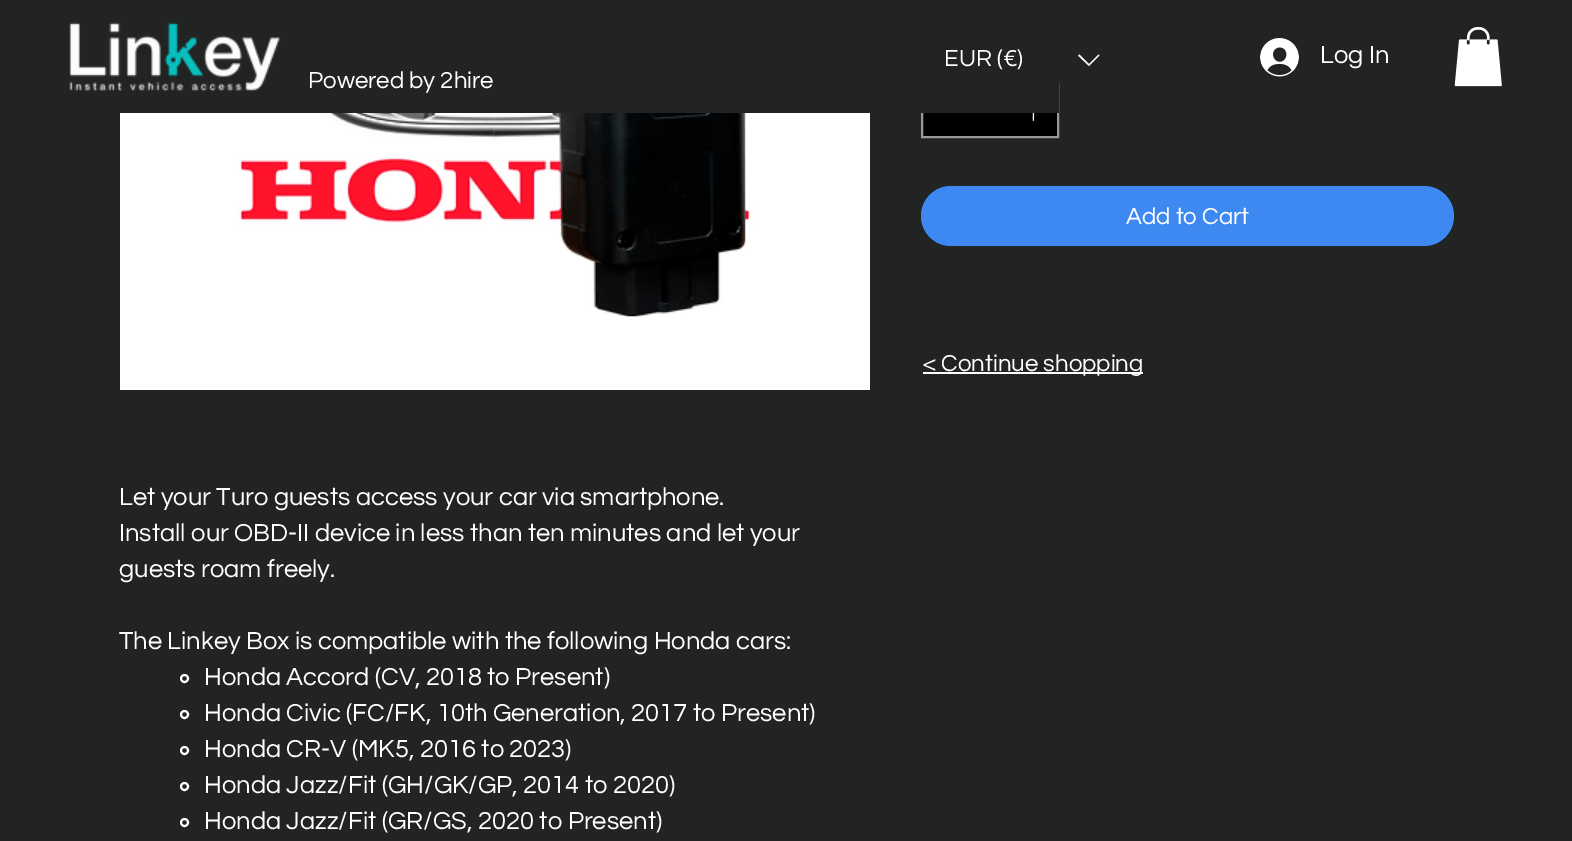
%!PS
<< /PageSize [1572 841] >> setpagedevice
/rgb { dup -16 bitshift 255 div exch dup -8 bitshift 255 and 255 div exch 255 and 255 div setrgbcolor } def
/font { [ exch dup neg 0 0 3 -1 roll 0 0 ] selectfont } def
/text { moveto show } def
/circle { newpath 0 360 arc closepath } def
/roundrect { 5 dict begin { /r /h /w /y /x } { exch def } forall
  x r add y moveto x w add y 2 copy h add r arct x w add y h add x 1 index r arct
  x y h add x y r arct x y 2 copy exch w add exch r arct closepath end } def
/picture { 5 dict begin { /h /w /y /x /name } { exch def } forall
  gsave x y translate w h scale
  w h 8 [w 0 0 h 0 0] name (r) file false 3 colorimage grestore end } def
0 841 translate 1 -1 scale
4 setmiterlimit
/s1 { /Questrial-Regular 24 font 16#FFFFFF rgb } def
/s2 { /Questrial-Regular 25.5 font 16#FFFFFF rgb } def
16#222323 rgb
0 0 1572 841 rectfill
(pic1.raw) 69 22 212 70 picture
s1
(EUR \(€\)) 944 66 text
1098.5 54.5 moveto 1099.5 55.5 lineto 1089 66 lineto 1078 55.5 lineto 1079.5 54.5 lineto 1089 64 lineto closepath eofill
(pic2.raw) 1260 38 39 39 picture
s2
(Log In) 1320 63 text
(pic3.raw) 1454 27 48 60 picture
s1
(Powered by 2hire) 308 88 text
16#000000 rgb
923 113 134 23 rectfill
16#999999 rgb
2 setlinewidth
922 84 136 53 rectstroke
16#222323 rgb
921 83 138 30 rectfill
(pic6.raw) 120 113 750 277 picture
(pic4.raw) 558 113 188 204 picture
(pic5.raw) 1032 113 3 8 picture
16#3E88F1 rgb
921 186 533 60 30 roundrect fill
s1
(Add to Cart) 1126 224 text
s2
(Let your Turo guests access your car via smartphone.) 119 505 text
(Install our OBD-II device in less than ten minutes and let your) 119 541 text
(guests roam freely.) 119 577 text
(The Linkey Box is compatible with the following Honda cars:) 119 649 text
184.5 678.5 3.5 circle stroke
(Honda Accord \(CV, 2018 to Present\)) 204 685 text
184.5 714.5 3.5 circle stroke
(Honda Civic \(FC/FK, 10th Generation, 2017 to Present\)) 204 721 text
184.5 750.5 3.5 circle stroke
(Honda CR-V \(MK5, 2016 to 2023\)) 204 757 text
184.5 786.5 3.5 circle stroke
(Honda Jazz/Fit \(GH/GK/GP, 2014 to 2020\)) 204 793 text
184.5 822.5 3.5 circle stroke
(Honda Jazz/Fit \(GR/GS, 2020 to Present\)) 204 829 text
923 372 220 2 rectfill
s1
(< Continue shopping) 923 371 text
showpage
